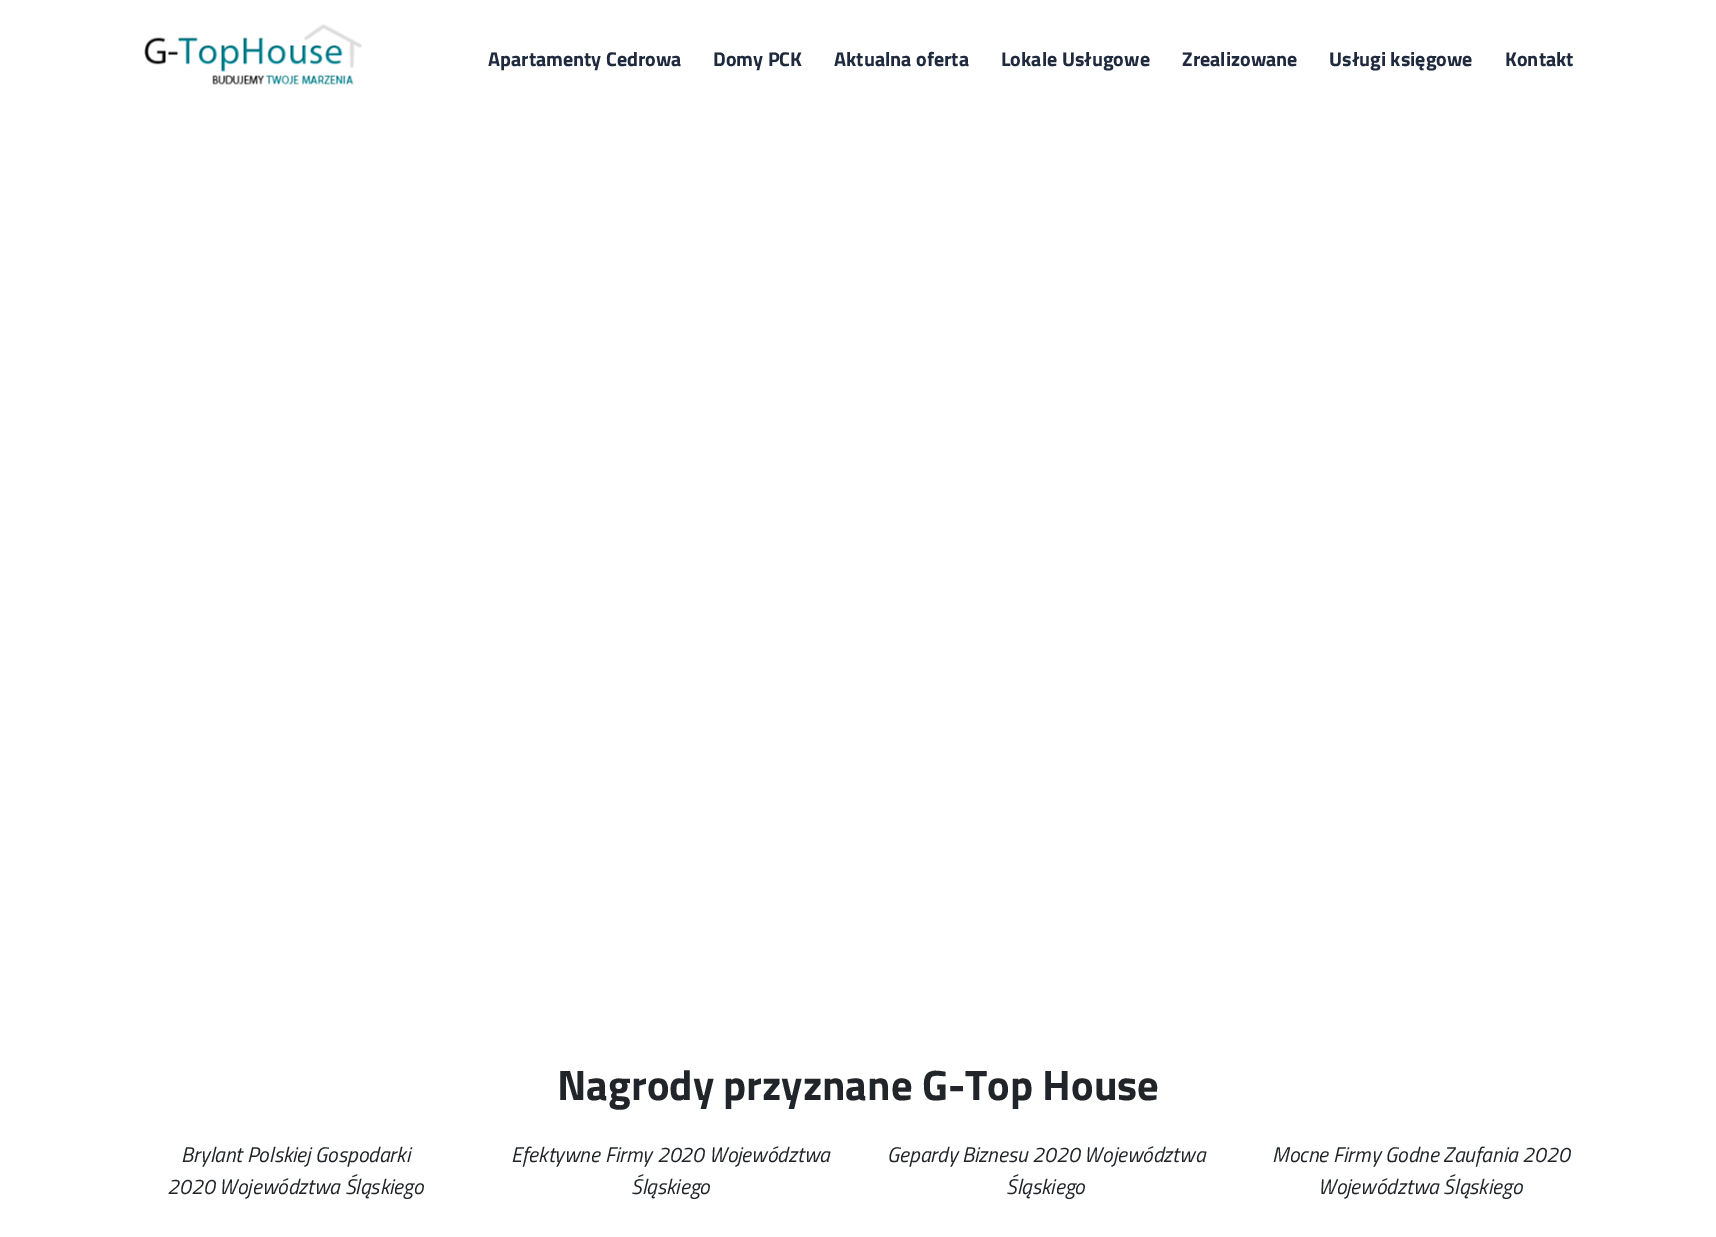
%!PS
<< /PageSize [1716 1237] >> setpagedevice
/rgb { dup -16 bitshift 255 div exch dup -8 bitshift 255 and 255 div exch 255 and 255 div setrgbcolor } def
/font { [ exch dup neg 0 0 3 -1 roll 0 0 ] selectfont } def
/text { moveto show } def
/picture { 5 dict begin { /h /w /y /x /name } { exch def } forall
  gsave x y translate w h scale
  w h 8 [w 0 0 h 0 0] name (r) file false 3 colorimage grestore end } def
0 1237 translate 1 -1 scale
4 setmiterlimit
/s1 { /TitilliumWeb-Bold 20 font 16#1F2A3E rgb } def
/s2 { /TitilliumWeb-Bold 42.5 font 16#212529 rgb } def
/s3 { /TitilliumWeb-Italic 21.25 font 16#212529 rgb } def
16#FFFFFF rgb
0 0 1716 1237 rectfill
(pic1.raw) 144 24 218 61 picture
s1
(Apartamenty Cedrowa) 488 66 text
(Domy PCK) 713 66 text
(Aktualna oferta) 834 66 text
(Lokale Usługowe) 1001 66 text
(Zrealizowane) 1182 66 text
(Usługi księgowe) 1329 66 text
(Kontakt) 1505 66 text
s2
(Nagrody przyznane G-Top House) 557 1100 text
s3
(Brylant Polskiej Gospodarki) 181 1162 text
(2020 Województwa Śląskiego) 167 1194 text
(Efektywne Firmy 2020 Województwa) 511 1162 text
(Śląskiego) 631 1194 text
(Gepardy Biznesu 2020 Województwa) 887 1162 text
(Śląskiego) 1006 1194 text
(Mocne Firmy Godne Zaufania 2020) 1272 1162 text
(Województwa Śląskiego) 1318 1194 text
showpage
